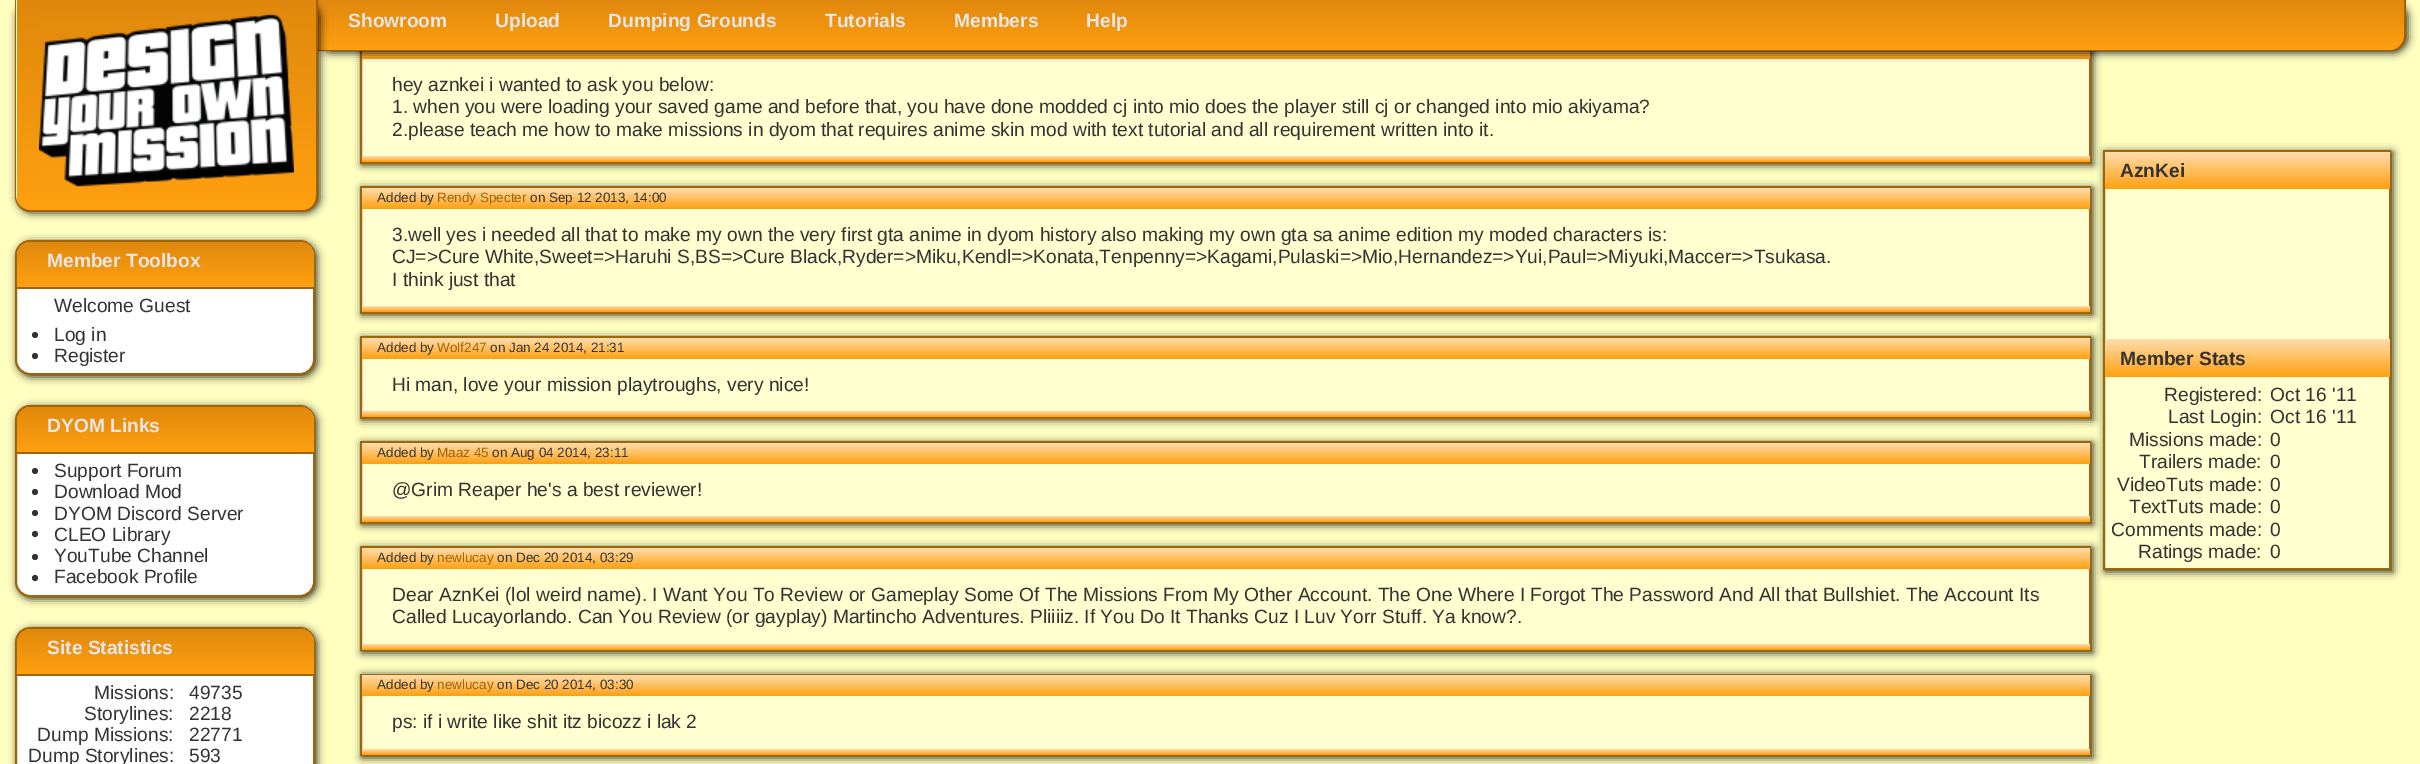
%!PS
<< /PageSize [2420 764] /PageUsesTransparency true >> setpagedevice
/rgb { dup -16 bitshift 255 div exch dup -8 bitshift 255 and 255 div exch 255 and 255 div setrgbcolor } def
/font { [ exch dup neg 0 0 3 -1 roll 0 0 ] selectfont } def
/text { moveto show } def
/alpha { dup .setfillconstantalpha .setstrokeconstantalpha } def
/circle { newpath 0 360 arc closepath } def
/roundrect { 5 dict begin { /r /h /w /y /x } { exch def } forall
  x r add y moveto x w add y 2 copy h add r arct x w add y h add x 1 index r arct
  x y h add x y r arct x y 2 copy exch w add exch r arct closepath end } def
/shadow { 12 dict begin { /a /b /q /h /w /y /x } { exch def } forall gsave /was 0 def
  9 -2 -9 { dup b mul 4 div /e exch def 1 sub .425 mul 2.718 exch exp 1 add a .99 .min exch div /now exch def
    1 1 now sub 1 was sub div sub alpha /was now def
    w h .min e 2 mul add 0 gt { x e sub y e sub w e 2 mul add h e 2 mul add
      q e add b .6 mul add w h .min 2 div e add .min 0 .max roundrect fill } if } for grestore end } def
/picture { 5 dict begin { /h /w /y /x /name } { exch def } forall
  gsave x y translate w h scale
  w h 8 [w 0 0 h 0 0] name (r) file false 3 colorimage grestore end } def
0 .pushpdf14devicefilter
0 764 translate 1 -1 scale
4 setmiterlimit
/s1 { /LiberationSans-Bold 19.2 font 16#E7E5E5 rgb } def
/s2 { /LiberationSans-Regular 19.2 font 16#333333 rgb } def
/s3 { /LiberationSans-Regular 13.5 font 16#333333 rgb } def
/s4 { /LiberationSans-Regular 13.5 font 16#A06409 rgb } def
/s5 { /LiberationSans-Bold 19.2 font 16#333333 rgb } def
16#FFFFC0 rgb
0 0 2420 764 rectfill
16#000000 rgb
362 38 1731 127 0 4 0.8 shadow
16#FFFFD0 rgb
362 59 1727 97 rectfill
16#A06409 rgb
2 setlinewidth
361 37 1729 126 rectstroke
gsave 362 51 moveto 2090 51 lineto 2090 59 lineto 362 59 lineto closepath clip newpath
<< /ShadingType 2 /ColorSpace /DeviceRGB /Coords [362 38 362 59] /Extend [true true] /Function << /FunctionType 2 /Domain [0 1] /C0 [1 0.867 0.678] /C1 [1 0.627 0.059] /N 1 >> >> shfill grestore
16#000000 rgb
317 2 2091 51 15 4 0.8 shadow
gsave 315 0 moveto 2405 0 lineto 2405 36 lineto 2405 43.5 2398.5 50 2391 50 curveto 315 50 lineto closepath clip newpath
<< /ShadingType 2 /ColorSpace /DeviceRGB /Coords [315 0 315 50] /Extend [true true] /Function << /FunctionType 2 /Domain [0 1] /C0 [0.878 0.533 0.051] /C1 [1 0.627 0.059] /N 1 >> >> shfill grestore
16#A06109 rgb
315 0 moveto 2406 0 lineto 2406 36 lineto 2406 44 2399 51 2391 51 curveto 315 51 lineto closepath 315 0 moveto 2404 0 lineto 2404 36 lineto 2404 43 2398 50 2391 50 curveto 315 50 lineto closepath eofill
gsave
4 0 moveto 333 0 lineto 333 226 lineto 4 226 lineto closepath 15 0 moveto 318 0 lineto 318 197 lineto 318 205.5 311.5 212 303 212 curveto 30 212 lineto 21.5 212 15 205.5 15 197 curveto closepath eoclip newpath
16#000000 rgb
17 2 303 211 15 4 0.8 shadow
grestore
gsave 17 0 moveto 317 0 lineto 317 196 lineto 317 203.5 310.5 210 303 210 curveto 31 210 lineto 23.5 210 17 203.5 17 196 curveto closepath clip newpath
<< /ShadingType 2 /ColorSpace /DeviceRGB /Coords [17 0 17 210] /Extend [true true] /Function << /FunctionType 2 /Domain [0 1] /C0 [0.878 0.533 0.051] /C1 [1 0.627 0.059] /N 1 >> >> shfill grestore
15 0 moveto 318 0 lineto 318 196 lineto 318 205 311 212 303 212 curveto 30 212 lineto 22 212 15 205 15 196 curveto closepath 16 0 moveto 316 0 lineto 316 196 lineto 316 204 310 210 303 210 curveto 30 210 lineto 23 210 16 204 16 196 curveto closepath eofill
(pic1.raw) 39 14 255 173 picture
s1
(Showroom) 348 27 text
(Upload) 495 27 text
(Dumping Grounds) 608 27 text
(Tutorials) 825 27 text
(Members) 954 27 text
(Help) 1086 27 text
16#000000 rgb
17 242 300 135 15 4 0.8 shadow
16#FFFFFF rgb
16 241 298 133 14 roundrect gsave fill grestore
16#A06409 rgb
stroke
gsave 31 242 moveto 300 242 lineto 307.5 242 314 248.5 314 256 curveto 314 287 lineto 17 287 lineto 17 256 lineto 17 248.5 23.5 242 31 242 curveto closepath clip newpath
<< /ShadingType 2 /ColorSpace /DeviceRGB /Coords [17 242 17 287] /Extend [true true] /Function << /FunctionType 2 /Domain [0 1] /C0 [0.878 0.533 0.051] /C1 [1 0.627 0.059] /N 1 >> >> shfill grestore
16#A06109 rgb
17 287 297 2 rectfill
s1
(Member Toolbox) 47 267 text
s2
(Welcome Guest) 54 312 text
35 335 3 circle fill
(Log in) 54 341 text
35 356 3 circle fill
(Register) 54 362 text
16#000000 rgb
17 407 300 192 15 4 0.8 shadow
16#FFFFFF rgb
16 406 298 190 14 roundrect gsave fill grestore
16#A06409 rgb
stroke
gsave 31 407 moveto 300 407 lineto 307.5 407 314 413.5 314 421 curveto 314 452 lineto 17 452 lineto 17 421 lineto 17 413.5 23.5 407 31 407 curveto closepath clip newpath
<< /ShadingType 2 /ColorSpace /DeviceRGB /Coords [17 407 17 452] /Extend [true true] /Function << /FunctionType 2 /Domain [0 1] /C0 [0.878 0.533 0.051] /C1 [1 0.627 0.059] /N 1 >> >> shfill grestore
16#A06109 rgb
17 452 297 2 rectfill
s1
(DYOM Links) 47 432 text
16#333333 rgb
35 471 3 circle fill
s2
(Support Forum) 54 477 text
35 492 3 circle fill
(Download Mod) 54 498 text
35 513 3 circle fill
(DYOM Discord Server) 54 520 text
35 534 3 circle fill
(CLEO Library) 54 541 text
35 557 3 circle fill
(YouTube Channel) 54 562 text
35 578 3 circle fill
(Facebook Profile) 54 583 text
16#000000 rgb
17 629 300 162 15 4 0.8 shadow
16#FFFFFF rgb
16 628 298 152 14 roundrect gsave fill grestore
16#A06409 rgb
stroke
gsave 31 629 moveto 300 629 lineto 307.5 629 314 635.5 314 643 curveto 314 674 lineto 17 674 lineto 17 643 lineto 17 635.5 23.5 629 31 629 curveto closepath clip newpath
<< /ShadingType 2 /ColorSpace /DeviceRGB /Coords [17 629 17 674] /Extend [true true] /Function << /FunctionType 2 /Domain [0 1] /C0 [0.878 0.533 0.051] /C1 [1 0.627 0.059] /N 1 >> >> shfill grestore
16#A06109 rgb
17 674 297 2 rectfill
s1
(Site Statistics) 47 654 text
s2
(Missions:) 94 699 text
(49735) 189 699 text
(Storylines:) 84 720 text
(2218) 189 720 text
(Dump Missions:) 37 741 text
(22771) 189 741 text
(Dump Storylines:) 28 762 text
(593) 189 762 text
(hey aznkei i wanted to ask you below:) 392 91 text
(1. when you were loading your saved game and before that, you have done modded cj into mio does the player still cj or changed into mio akiyama?) 392 113 text
(2.please teach me how to make missions in dyom that requires anime skin mod with text tutorial and all requirement written into it.) 392 136 text
gsave 362 156 moveto 2090 156 lineto 2090 162 lineto 362 162 lineto closepath clip newpath
<< /ShadingType 2 /ColorSpace /DeviceRGB /Coords [362 156 362 162] /Extend [true true] /Function << /FunctionType 2 /Domain [0 1] /C0 [1 0.867 0.678] /C1 [1 0.627 0.059] /N 1 >> >> shfill grestore
16#000000 rgb
362 188 1731 127 0 4 0.8 shadow
16#FFFFD0 rgb
362 209 1727 97 rectfill
16#A06409 rgb
361 187 1729 126 rectstroke
gsave 362 188 moveto 2090 188 lineto 2090 209 lineto 362 209 lineto closepath clip newpath
<< /ShadingType 2 /ColorSpace /DeviceRGB /Coords [362 188 362 209] /Extend [true true] /Function << /FunctionType 2 /Domain [0 1] /C0 [1 0.867 0.678] /C1 [1 0.627 0.059] /N 1 >> >> shfill grestore
s3
(Added by) 377 202 text
s4
(Rendy Specter) 437 202 text
s3
(on Sep 12 2013, 14:00) 530 202 text
s2
(3.well yes i needed all that to make my own the very first gta anime in dyom history also making my own gta sa anime edition my moded characters is:) 392 241 text
(CJ=>Cure White,Sweet=>Haruhi S,BS=>Cure Black,Ryder=>Miku,Kendl=>Konata,Tenpenny=>Kagami,Pulaski=>Mio,Hernandez=>Yui,Paul=>Miyuki,Maccer=>Tsukasa.) 392 263 text
(I think just that) 392 286 text
gsave 362 306 moveto 2090 306 lineto 2090 312 lineto 362 312 lineto closepath clip newpath
<< /ShadingType 2 /ColorSpace /DeviceRGB /Coords [362 306 362 312] /Extend [true true] /Function << /FunctionType 2 /Domain [0 1] /C0 [1 0.867 0.678] /C1 [1 0.627 0.059] /N 1 >> >> shfill grestore
16#000000 rgb
2105 152 288 420 0 4 0.8 shadow
362 338 1731 82 0 4 0.8 shadow
362 443 1731 82 0 4 0.8 shadow
362 548 1731 105 0 4 0.8 shadow
16#FFFFD0 rgb
2105 189 284 379 rectfill
16#A06409 rgb
2104 151 286 418 rectstroke
gsave 2105 152 moveto 2390 152 lineto 2390 189 lineto 2105 189 lineto closepath clip newpath
<< /ShadingType 2 /ColorSpace /DeviceRGB /Coords [2105 152 2105 189] /Extend [true true] /Function << /FunctionType 2 /Domain [0 1] /C0 [1 0.867 0.678] /C1 [1 0.627 0.059] /N 1 >> >> shfill grestore
s5
(AznKei) 2120 177 text
gsave 2105 339 moveto 2390 339 lineto 2390 377 lineto 2105 377 lineto closepath clip newpath
<< /ShadingType 2 /ColorSpace /DeviceRGB /Coords [2105 339 2105 377] /Extend [true true] /Function << /FunctionType 2 /Domain [0 1] /C0 [1 0.867 0.678] /C1 [1 0.627 0.059] /N 1 >> >> shfill grestore
(Member Stats) 2120 365 text
s2
(Registered:) 2164 401 text
(Oct 16 '11) 2270 401 text
(Last Login:) 2168 423 text
(Oct 16 '11) 2270 423 text
(Missions made:) 2129 446 text
(0) 2270 446 text
(Trailers made:) 2139 468 text
(0) 2270 468 text
(VideoTuts made:) 2117 491 text
(0) 2270 491 text
(TextTuts made:) 2129 513 text
(0) 2270 513 text
(Comments made:) 2111 536 text
(0) 2270 536 text
(Ratings made:) 2138 558 text
(0) 2270 558 text
16#FFFFD0 rgb
362 359 1727 52 rectfill
16#A06409 rgb
361 337 1729 81 rectstroke
gsave 362 338 moveto 2090 338 lineto 2090 359 lineto 362 359 lineto closepath clip newpath
<< /ShadingType 2 /ColorSpace /DeviceRGB /Coords [362 338 362 359] /Extend [true true] /Function << /FunctionType 2 /Domain [0 1] /C0 [1 0.867 0.678] /C1 [1 0.627 0.059] /N 1 >> >> shfill grestore
s3
(Added by) 377 352 text
s4
(Wolf247) 437 352 text
s3
(on Jan 24 2014, 21:31) 490 352 text
s2
(Hi man, love your mission playtroughs, very nice!) 392 391 text
gsave 362 411 moveto 2090 411 lineto 2090 417 lineto 362 417 lineto closepath clip newpath
<< /ShadingType 2 /ColorSpace /DeviceRGB /Coords [362 411 362 417] /Extend [true true] /Function << /FunctionType 2 /Domain [0 1] /C0 [1 0.867 0.678] /C1 [1 0.627 0.059] /N 1 >> >> shfill grestore
16#FFFFD0 rgb
362 464 1727 52 rectfill
16#A06409 rgb
361 442 1729 81 rectstroke
gsave 362 443 moveto 2090 443 lineto 2090 464 lineto 362 464 lineto closepath clip newpath
<< /ShadingType 2 /ColorSpace /DeviceRGB /Coords [362 443 362 464] /Extend [true true] /Function << /FunctionType 2 /Domain [0 1] /C0 [1 0.867 0.678] /C1 [1 0.627 0.059] /N 1 >> >> shfill grestore
s3
(Added by) 377 457 text
s4
(Maaz 45) 437 457 text
s3
(on Aug 04 2014, 23:11) 492 457 text
s2
(@Grim Reaper he's a best reviewer!) 392 496 text
gsave 362 516 moveto 2090 516 lineto 2090 522 lineto 362 522 lineto closepath clip newpath
<< /ShadingType 2 /ColorSpace /DeviceRGB /Coords [362 516 362 522] /Extend [true true] /Function << /FunctionType 2 /Domain [0 1] /C0 [1 0.867 0.678] /C1 [1 0.627 0.059] /N 1 >> >> shfill grestore
16#FFFFD0 rgb
362 569 1727 75 rectfill
16#A06409 rgb
361 547 1729 103 rectstroke
gsave 362 548 moveto 2090 548 lineto 2090 569 lineto 362 569 lineto closepath clip newpath
<< /ShadingType 2 /ColorSpace /DeviceRGB /Coords [362 548 362 569] /Extend [true true] /Function << /FunctionType 2 /Domain [0 1] /C0 [1 0.867 0.678] /C1 [1 0.627 0.059] /N 1 >> >> shfill grestore
s3
(Added by) 377 562 text
s4
(newlucay) 437 562 text
s3
(on Dec 20 2014, 03:29) 497 562 text
s2
(Dear AznKei \(lol weird name\). I Want You To Review or Gameplay Some Of The Missions From My Other Account. The One Where I Forgot The Password And All that Bullshiet. The Account Its) 392 601 text
(Called Lucayorlando. Can You Review \(or gayplay\) Martincho Adventures. Pliiiiz. If You Do It Thanks Cuz I Luv Yorr Stuff. Ya know?.) 392 623 text
gsave 362 644 moveto 2090 644 lineto 2090 650 lineto 362 650 lineto closepath clip newpath
<< /ShadingType 2 /ColorSpace /DeviceRGB /Coords [362 644 362 650] /Extend [true true] /Function << /FunctionType 2 /Domain [0 1] /C0 [1 0.867 0.678] /C1 [1 0.627 0.059] /N 1 >> >> shfill grestore
16#000000 rgb
362 675 1731 83 0 4 0.8 shadow
16#FFFFD0 rgb
362 696 1727 53 rectfill
16#A06409 rgb
361 675 1729 80 rectstroke
gsave 362 675 moveto 2090 675 lineto 2090 696 lineto 362 696 lineto closepath clip newpath
<< /ShadingType 2 /ColorSpace /DeviceRGB /Coords [362 675 362 696] /Extend [true true] /Function << /FunctionType 2 /Domain [0 1] /C0 [1 0.867 0.678] /C1 [1 0.627 0.059] /N 1 >> >> shfill grestore
s3
(Added by) 377 689 text
s4
(newlucay) 437 689 text
s3
(on Dec 20 2014, 03:30) 497 689 text
s2
(ps: if i write like shit itz bicozz i lak 2) 392 728 text
gsave 362 749 moveto 2090 749 lineto 2090 755 lineto 362 755 lineto closepath clip newpath
<< /ShadingType 2 /ColorSpace /DeviceRGB /Coords [362 749 362 755] /Extend [true true] /Function << /FunctionType 2 /Domain [0 1] /C0 [1 0.867 0.678] /C1 [1 0.627 0.059] /N 1 >> >> shfill grestore
.poppdf14devicefilter showpage
